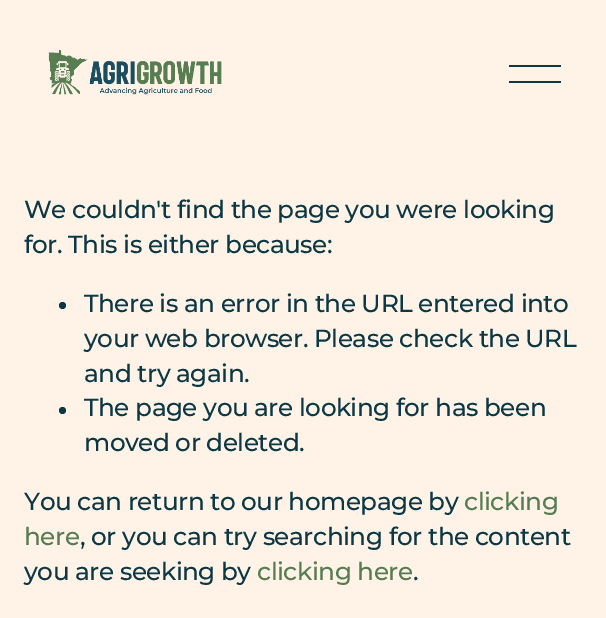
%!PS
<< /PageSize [606 618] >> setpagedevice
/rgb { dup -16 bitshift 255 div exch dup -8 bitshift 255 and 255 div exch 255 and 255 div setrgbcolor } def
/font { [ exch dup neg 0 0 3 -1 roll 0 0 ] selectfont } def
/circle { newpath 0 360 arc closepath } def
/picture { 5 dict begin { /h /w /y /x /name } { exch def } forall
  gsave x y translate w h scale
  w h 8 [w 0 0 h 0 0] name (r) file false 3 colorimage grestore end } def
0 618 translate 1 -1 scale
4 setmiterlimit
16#FFF3E8 rgb
0 0 606 618 rectfill
(pic1.raw) 48 49 174 46 picture
16#0C3844 rgb
509 65 52 2 rectfill
509 81 52 2 rectfill
/Montserrat-Medium 24.75 font
24 218 moveto -0.5 0 (We couldn't find the page you were looking) ashow
24 253 moveto -0.5 0 (for. This is either because:) ashow
62.5 305.5 3.5 circle fill
84 312 moveto -0.5 0 (There is an error in the URL entered into) ashow
84 347 moveto -0.5 0 (your web browser. Please check the URL) ashow
84 382 moveto -0.5 0 (and try again.) ashow
62.5 410.5 3.5 circle fill
84 416 moveto -0.5 0 (The page you are looking for has been) ashow
84 451 moveto -0.5 0 (moved or deleted.) ashow
24 510 moveto -0.5 0 (You can return to our homepage by) ashow
16#577C52 rgb
464 510 moveto -0.5 0 (clicking) ashow
24 545 moveto -0.5 0 (here) ashow
16#0C3844 rgb
80 545 moveto -0.5 0 (, or you can try searching for the content) ashow
24 580 moveto -0.5 0 (you are seeking by) ashow
16#577C52 rgb
257 580 moveto -0.5 0 (clicking here) ashow
16#0C3844 rgb
413 580 moveto -0.5 0 (.) ashow
showpage
